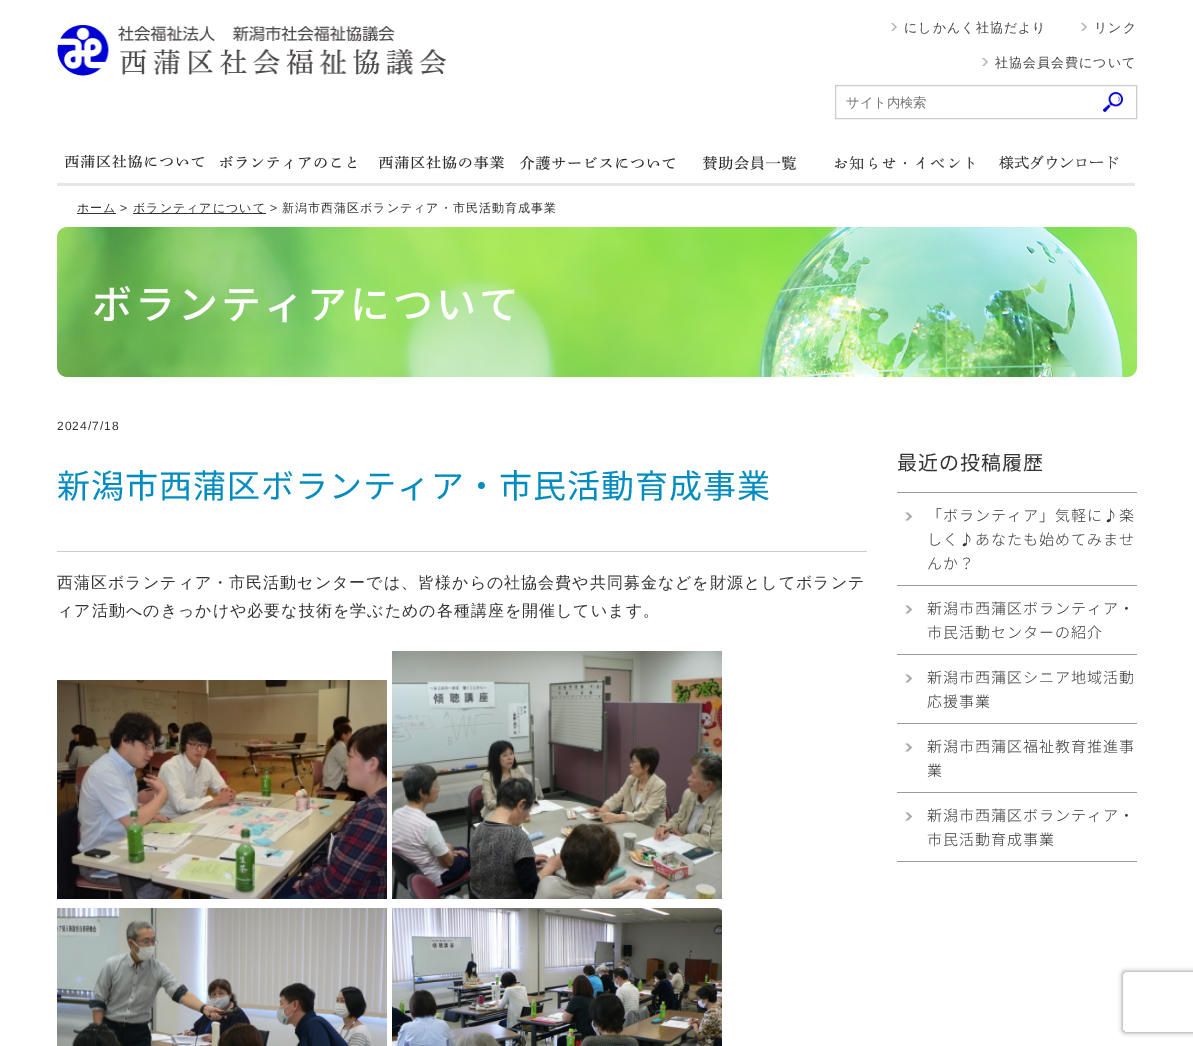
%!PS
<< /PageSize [1193 1046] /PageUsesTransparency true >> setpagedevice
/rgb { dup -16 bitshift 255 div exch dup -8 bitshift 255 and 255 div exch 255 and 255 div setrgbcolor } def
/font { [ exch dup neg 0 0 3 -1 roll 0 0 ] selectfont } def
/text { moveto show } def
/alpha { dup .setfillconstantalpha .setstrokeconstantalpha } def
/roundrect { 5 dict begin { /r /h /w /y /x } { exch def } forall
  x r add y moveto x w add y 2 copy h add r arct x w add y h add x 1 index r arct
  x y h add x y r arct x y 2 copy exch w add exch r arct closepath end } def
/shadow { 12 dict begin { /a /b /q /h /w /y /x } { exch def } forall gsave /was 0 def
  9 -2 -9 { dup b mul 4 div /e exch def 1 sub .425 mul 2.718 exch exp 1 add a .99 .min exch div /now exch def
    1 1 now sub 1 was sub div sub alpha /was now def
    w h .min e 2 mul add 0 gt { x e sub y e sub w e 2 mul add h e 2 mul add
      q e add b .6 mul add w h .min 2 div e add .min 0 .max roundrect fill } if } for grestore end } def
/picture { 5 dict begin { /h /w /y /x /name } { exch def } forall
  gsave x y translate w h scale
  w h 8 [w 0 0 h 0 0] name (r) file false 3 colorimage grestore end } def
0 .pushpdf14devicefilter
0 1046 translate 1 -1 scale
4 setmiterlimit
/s1 { /WenQuanYiZenHei-Medium 13.25 font 16#757575 rgb } def
16#FFFFFF rgb
0 0 1193 1046 rectfill
(pic1.raw) 57 25 390 51 picture
(pic2.raw) 891 23 6 8 picture
/WenQuanYiZenHei-Medium 13 font
16#444444 rgb
904 32 moveto 1 0 (にしかんく社協だより) ashow
(pic2.raw) 1081 23 6 8 picture
1094 32 moveto 1 0 (リンク) ashow
(pic2.raw) 982 58 6 8 picture
995 67 moveto 1 0 (社協会員会費について) ashow
16#CCCCCC rgb
835.5 85.5 301 33 rectstroke
s1
(サイト内検索) 846 107 text
(pic3.raw) 1103 92 20 20 picture
(pic4.raw) 57 155 154 31 picture
(pic5.raw) 211 156 154 30 picture
(pic6.raw) 365 156 154 30 picture
(pic7.raw) 519 156 154 30 picture
(pic8.raw) 673 156 154 30 picture
(pic9.raw) 827 156 154 30 picture
(pic10.raw) 981 155 154 31 picture
16#333333 rgb
77 213 39 1 rectfill
/WenQuanYiZenHei-Medium 12 font
77 212 moveto 1 0 (ホーム) ashow
/LiberationSans-Regular 12 font
120 212 moveto 1 0 (>) ashow
133 213 133 1 rectfill
/WenQuanYiZenHei-Medium 12 font
133 212 moveto 1 0 (ボランティアについて) ashow
/LiberationSans-Regular 12 font
270 212 moveto 1 0 (>) ashow
/WenQuanYiZenHei-Medium 12 font
282 212 moveto 1 0 (新潟市西蒲区ボランティア・市民活動育成事業) ashow
(pic11.raw) 57 227 1080 150 picture
/NotoSansJP-Medium 40 font
16#FFFFFF rgb
92 319 moveto 3 0 (ボランティアについて) ashow
/LiberationSans-Regular 12 font
16#333333 rgb
57 430 moveto 1 0 (2024/7/18) ashow
/NotoSansJP-Regular 33 font
16#008BC1 rgb
57 498 moveto 1 0 (新潟市西蒲区ボランティア・市民活動育成事業) ashow
16#CCCCCC rgb
57 551 810 1 rectfill
/WenQuanYiZenHei-Medium 16 font
16#333333 rgb
57 588 moveto 1 0 (西蒲区ボランティア・市民活動センターでは、皆様からの社協会費や共同募金などを財源としてボランテ) ashow
57 616 moveto 1 0 (ィア活動へのきっかけや必要な技術を学ぶための各種講座を開催しています。) ashow
(pic12.raw) 57 680 330 219 picture
(pic13.raw) 392 651 330 248 picture
(pic14.raw) 57 908 330 138 picture
(pic15.raw) 392 908 330 138 picture
/NotoSansJP-Regular 20 font
897 470 moveto 1 0 (最近の投稿履歴) ashow
16#9A9A9A rgb
897 492 240 1 rectfill
897 585 240 1 rectfill
(pic16.raw) 905 512 8 9 picture
/NotoSansJP-Light 15 font
16#333333 rgb
927 521 moveto 1 0 (「ボランティア」気軽に♪楽) ashow
927 545 moveto 1 0 (しく♪あなたも始めてみませ) ashow
927 569 moveto 1 0 (んか？) ashow
16#9A9A9A rgb
897 654 240 1 rectfill
(pic16.raw) 905 605 8 9 picture
16#333333 rgb
927 614 moveto 1 0 (新潟市西蒲区ボランティア・) ashow
927 638 moveto 1 0 (市民活動センターの紹介) ashow
16#9A9A9A rgb
897 723 240 1 rectfill
(pic16.raw) 905 674 8 9 picture
16#333333 rgb
927 683 moveto 1 0 (新潟市西蒲区シニア地域活動) ashow
927 707 moveto 1 0 (応援事業) ashow
16#9A9A9A rgb
897 792 240 1 rectfill
(pic16.raw) 905 743 8 9 picture
16#333333 rgb
927 752 moveto 1 0 (新潟市西蒲区福祉教育推進事) ashow
927 776 moveto 1 0 (業) ashow
16#9A9A9A rgb
897 861 240 1 rectfill
(pic16.raw) 905 812 8 9 picture
16#333333 rgb
927 821 moveto 1 0 (新潟市西蒲区ボランティア・) ashow
927 845 moveto 1 0 (市民活動育成事業) ashow
gsave
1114 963 moveto 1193 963 lineto 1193 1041 lineto 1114 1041 lineto closepath 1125 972 moveto 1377 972 lineto 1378 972 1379 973 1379 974 curveto 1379 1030 lineto 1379 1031 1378 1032 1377 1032 curveto 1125 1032 lineto 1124 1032 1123 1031 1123 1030 curveto 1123 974 lineto 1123 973 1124 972 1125 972 curveto closepath eoclip newpath
16#808080 rgb
1123 972 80 60 2 2.5 1 shadow
grestore
.poppdf14devicefilter showpage
